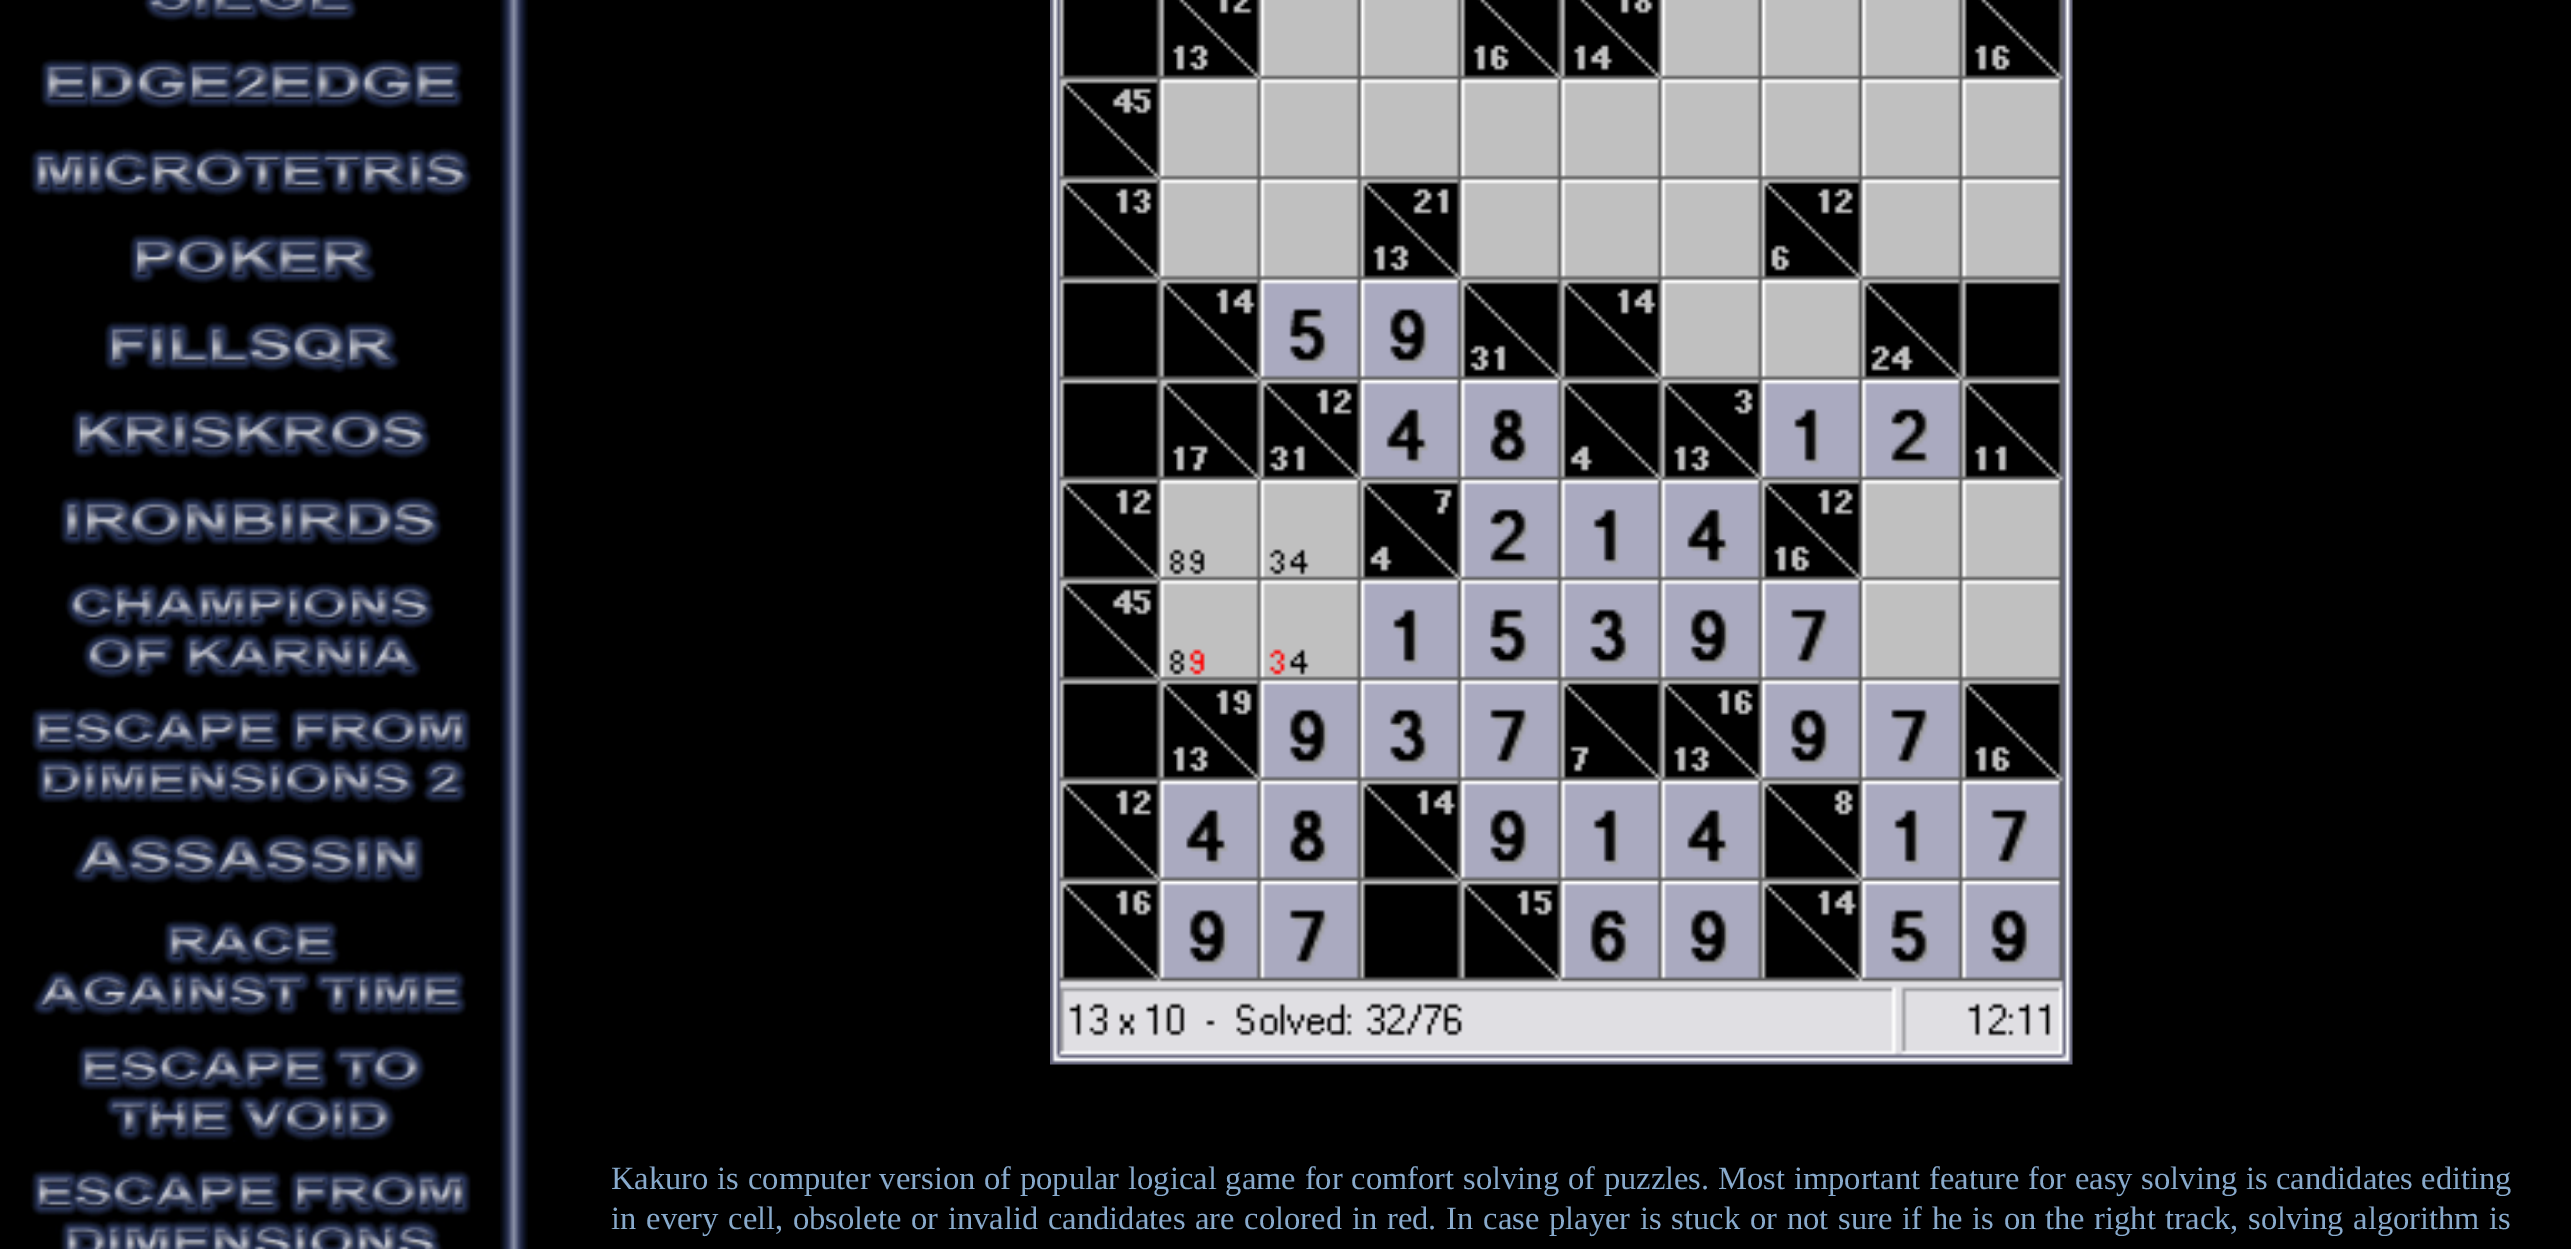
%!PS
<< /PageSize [2571 1249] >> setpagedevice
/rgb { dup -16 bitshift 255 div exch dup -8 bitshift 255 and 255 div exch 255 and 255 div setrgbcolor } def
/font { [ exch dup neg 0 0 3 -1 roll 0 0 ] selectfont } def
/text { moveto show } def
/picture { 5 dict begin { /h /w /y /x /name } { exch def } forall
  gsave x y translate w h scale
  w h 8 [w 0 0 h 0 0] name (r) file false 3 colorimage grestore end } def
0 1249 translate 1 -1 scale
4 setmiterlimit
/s1 { /LiberationSerif-Regular 32.5 font 16#88AACC rgb } def
16#000000 rgb
0 0 2571 1249 rectfill
(pic1.raw) 142 0 216 22 picture
(pic2.raw) 40 59 424 50 picture
(pic3.raw) 29 147 444 50 picture
(pic4.raw) 129 234 248 50 picture
(pic5.raw) 104 321 297 53 picture
(pic6.raw) 71 409 360 51 picture
(pic7.raw) 59 496 384 51 picture
(pic8.raw) 65 582 371 97 picture
(pic9.raw) 30 707 441 98 picture
(pic10.raw) 72 834 353 51 picture
(pic11.raw) 32 919 435 98 picture
(pic12.raw) 77 1044 349 98 picture
(pic13.raw) 30 1169 441 80 picture
(pic14.raw) 500 0 28 1249 picture
(pic15.raw) 1050 0 1023 1065 picture
/LiberationSerif-Regular 32.5 font
16#88AACC rgb
611 1189 moveto 0.75 0 32 (Kakuro is computer version of popular logical game for comfort solving of puzzles. Most important feature for easy solving is) widthshow
(candidates editing) 2276 1189 text
611 1229 moveto 1.7 0 32 (in every cell, obsolete or invalid candidates are colored in red. In case player is stuck or not sure if he is on) widthshow
2045 1229 moveto 1.5 0 32 (the right track, solving algorithm is) widthshow
showpage
